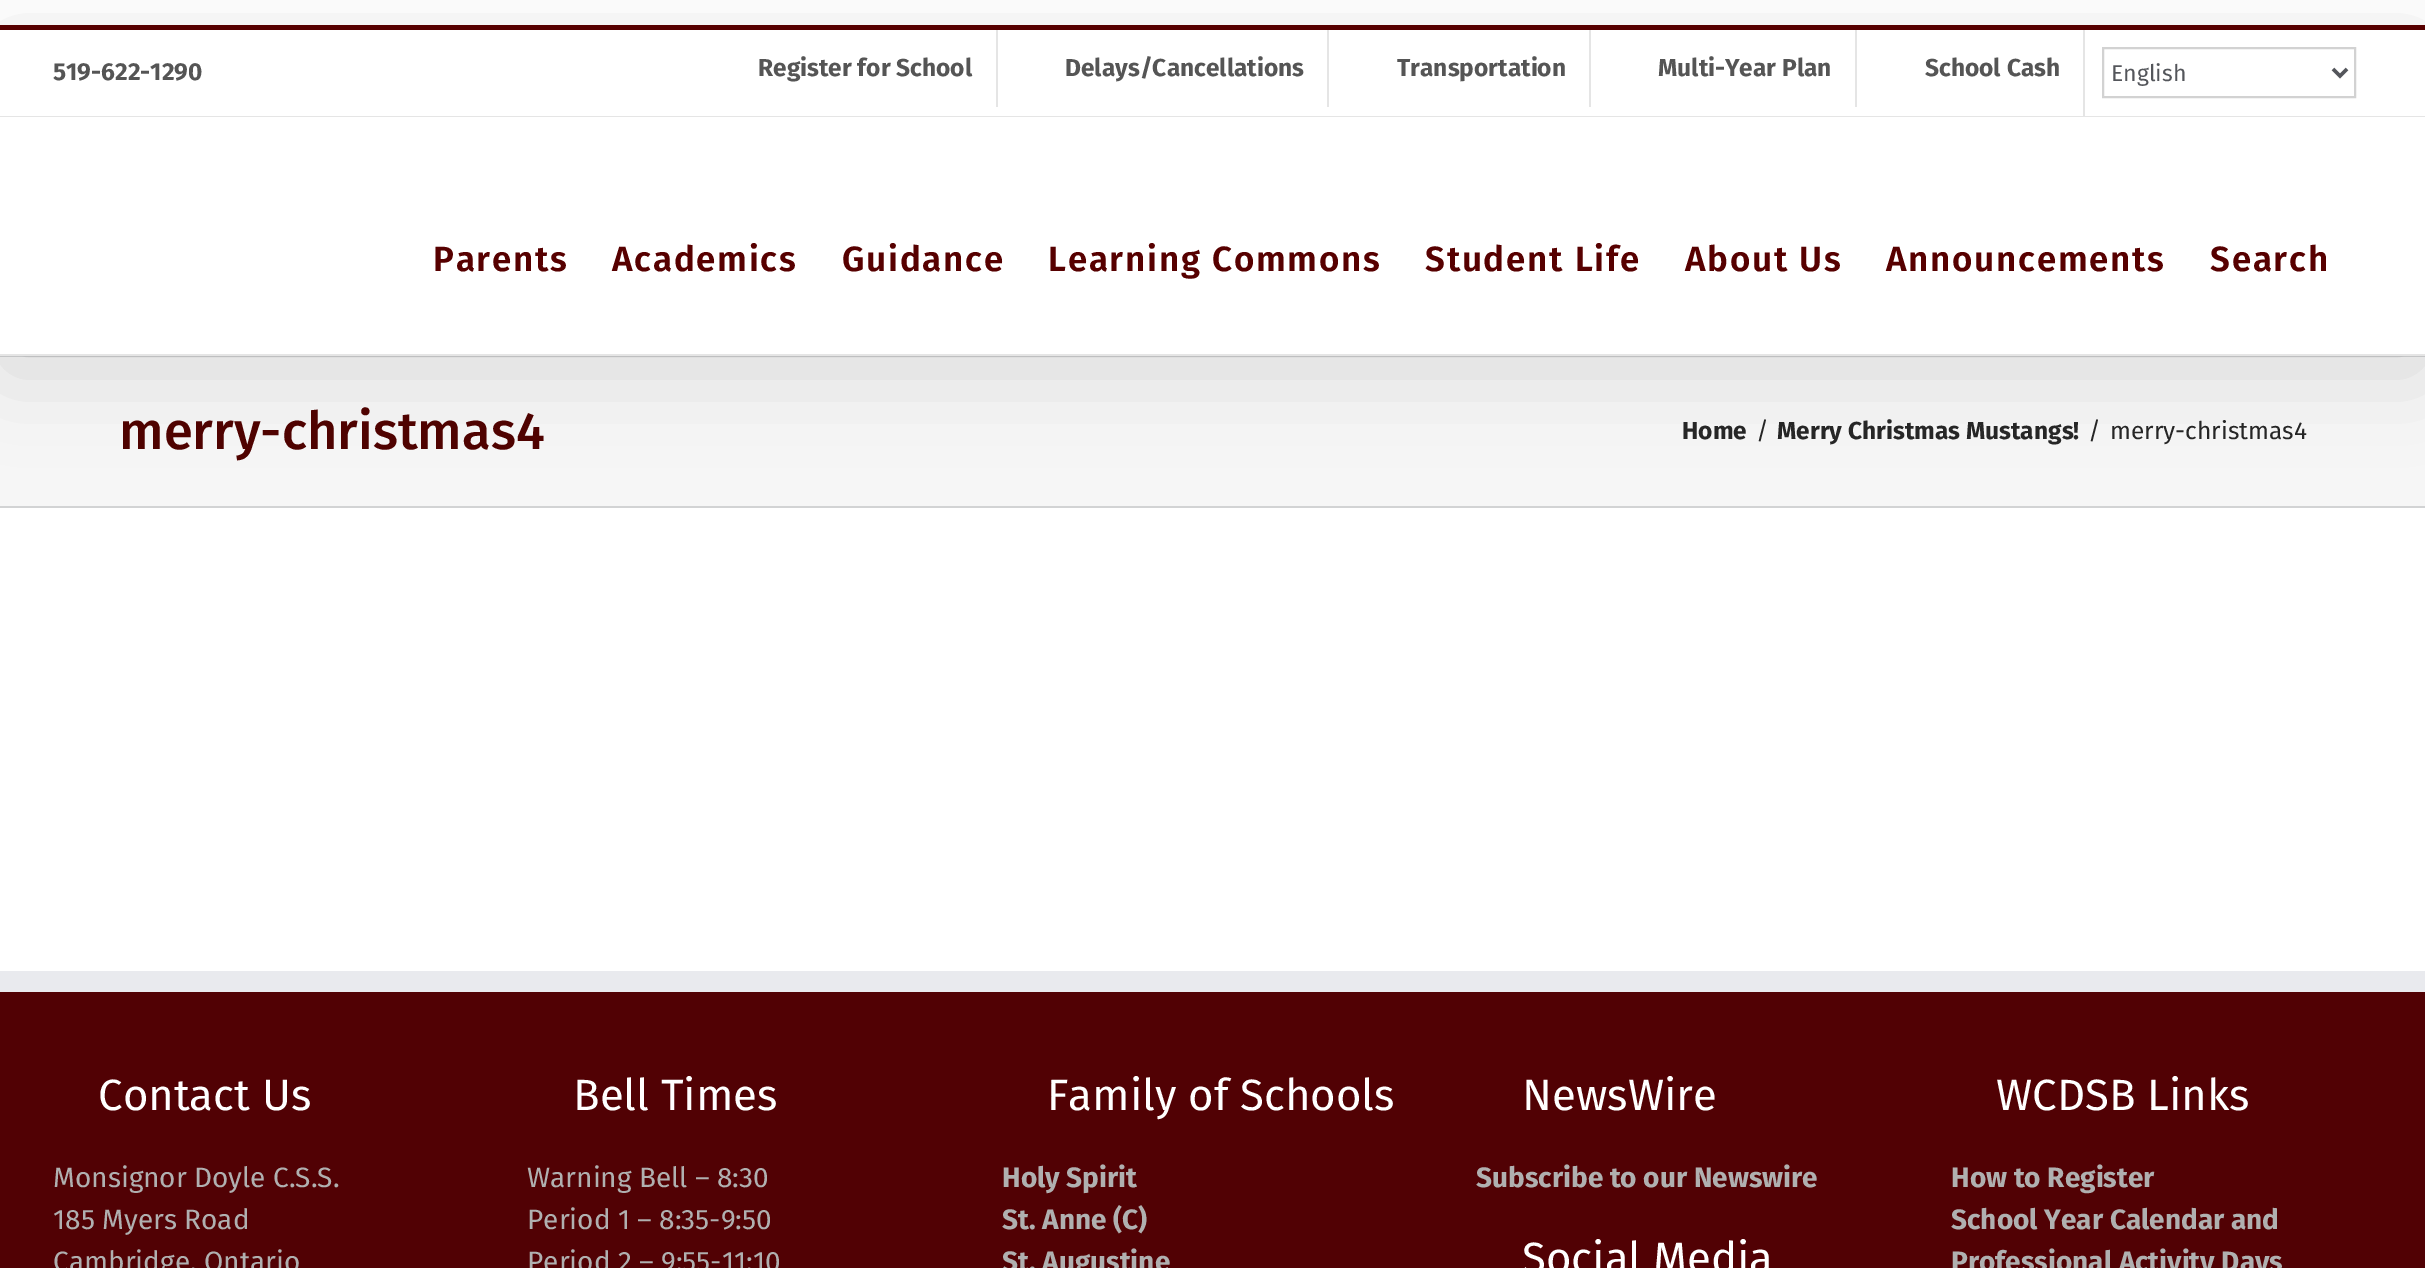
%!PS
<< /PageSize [2425 1268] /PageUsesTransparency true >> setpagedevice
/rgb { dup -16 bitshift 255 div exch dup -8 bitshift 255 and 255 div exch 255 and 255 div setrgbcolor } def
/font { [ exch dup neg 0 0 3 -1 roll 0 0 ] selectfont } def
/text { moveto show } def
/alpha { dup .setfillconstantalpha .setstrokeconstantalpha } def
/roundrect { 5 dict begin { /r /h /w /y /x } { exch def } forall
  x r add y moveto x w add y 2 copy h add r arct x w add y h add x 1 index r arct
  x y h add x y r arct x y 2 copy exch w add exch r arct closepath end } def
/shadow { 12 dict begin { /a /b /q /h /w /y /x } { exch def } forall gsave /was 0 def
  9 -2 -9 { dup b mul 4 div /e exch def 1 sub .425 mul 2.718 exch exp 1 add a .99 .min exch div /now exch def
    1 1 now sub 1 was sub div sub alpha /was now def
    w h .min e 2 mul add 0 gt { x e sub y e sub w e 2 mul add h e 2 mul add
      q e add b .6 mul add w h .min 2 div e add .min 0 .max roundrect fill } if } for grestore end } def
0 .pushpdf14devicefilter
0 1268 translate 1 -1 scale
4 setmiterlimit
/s1 { /FiraSans-Bold 24.5 font 16#555555 rgb } def
/s2 { /FiraSans-Regular 23 font 16#54565B rgb } def
/s3 { /FiraSans-Medium 52.5 font 16#4F0200 rgb } def
/s4 { /FiraSans-Bold 24.5 font 16#262626 rgb } def
/s5 { /FiraSans-Regular 24.5 font 16#262626 rgb } def
/s6 { /FiraSans-Regular 43.75 font 16#FFFFFF rgb } def
/s7 { /FiraSans-Regular 28 font 16#B0B0B0 rgb } def
/s8 { /FiraSans-Bold 28 font 16#B0B0B0 rgb } def
16#FFFFFF rgb
0 0 2425 1268 rectfill
16#F6F6F6 rgb
0 357 2425 149 rectfill
16#D2D3D4 rgb
0 356 2425 1 rectfill
gsave
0 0 moveto 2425 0 lineto 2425 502 lineto 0 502 lineto closepath 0 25 moveto 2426 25 lineto 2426 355 lineto 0 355 lineto closepath eoclip newpath
16#000000 rgb
4 46 2418 323 0 44 0.14 shadow
grestore
16#570000 rgb
0 25 2425 5 rectfill
16#E5E5E5 rgb
0 116 2425 1 rectfill
s1
(519-622-1290) 53 80 text
(Register for School) 758 76 text
16#E5E5E5 rgb
996 30 2 77 rectfill
s1
(Delays/Cancellations) 1065 76 text
16#E5E5E5 rgb
1327 30 2 77 rectfill
s1
(Transportation) 1397 76 text
16#E5E5E5 rgb
1589 30 2 77 rectfill
s1
(Multi-Year Plan) 1658 76 text
16#E5E5E5 rgb
1855 30 2 77 rectfill
s1
(School Cash) 1925 76 text
16#E5E5E5 rgb
2083 30 2 86 rectfill
16#D2D2D2 rgb
2 setlinewidth
2103 48 252 49 rectstroke
16#54565B rgb
3.5 setlinewidth
2333 69 moveto 2340 76 lineto 2347 69 lineto stroke
s2
(English) 2111 81 text
16#E5E5E5 rgb
0 354 2425 2 rectfill
/FiraSans-SemiBold 35 font
16#570000 rgb
433 271 moveto 1.75 0 (Parents) ashow
612 271 moveto 1.75 0 (Academics) ashow
842 271 moveto 1.75 0 (Guidance) ashow
1048 271 moveto 1.75 0 (Learning Commons) ashow
1425 271 moveto 1.75 0 (Student Life) ashow
1685 271 moveto 1.75 0 (About Us) ashow
1886 271 moveto 1.75 0 (Announcements) ashow
2210 271 moveto 1.75 0 (Search) ashow
16#D2D3D4 rgb
0 506 2425 2 rectfill
s3
(merry-christmas4) 119 449 text
s4
(Home) 1682 439 text
s5
(/) 1756 439 text
s4
(Merry Christmas Mustangs!) 1777 439 text
s5
(/) 2088 439 text
(merry-christmas4) 2110 439 text
16#510104 rgb
0 992 2425 276 rectfill
16#E9EAEE rgb
0 971 2425 21 rectfill
s6
(Contact Us) 98 1110 text
s7
(Monsignor Doyle C.S.S.) 53 1187 text
(185 Myers Road) 53 1229 text
(Cambridge, Ontario) 53 1271 text
s6
(Bell Times) 573 1110 text
s7
(Warning Bell – 8:30) 527 1187 text
(Period 1 – 8:35-9:50) 527 1229 text
(Period 2 – 9:55-11:10) 527 1271 text
s6
(Family of Schools) 1047 1110 text
s8
(Holy Spirit) 1002 1187 text
(St. Anne \(C\)) 1002 1229 text
(St. Augustine) 1002 1271 text
s6
(NewsWire) 1522 1110 text
s8
(Subscribe to our Newswire) 1476 1187 text
s6
(Social Media) 1522 1273 text
(WCDSB Links) 1996 1110 text
s8
(How to Register) 1951 1187 text
(School Year Calendar and) 1951 1229 text
(Professional Activity Days) 1951 1271 text
.poppdf14devicefilter showpage
